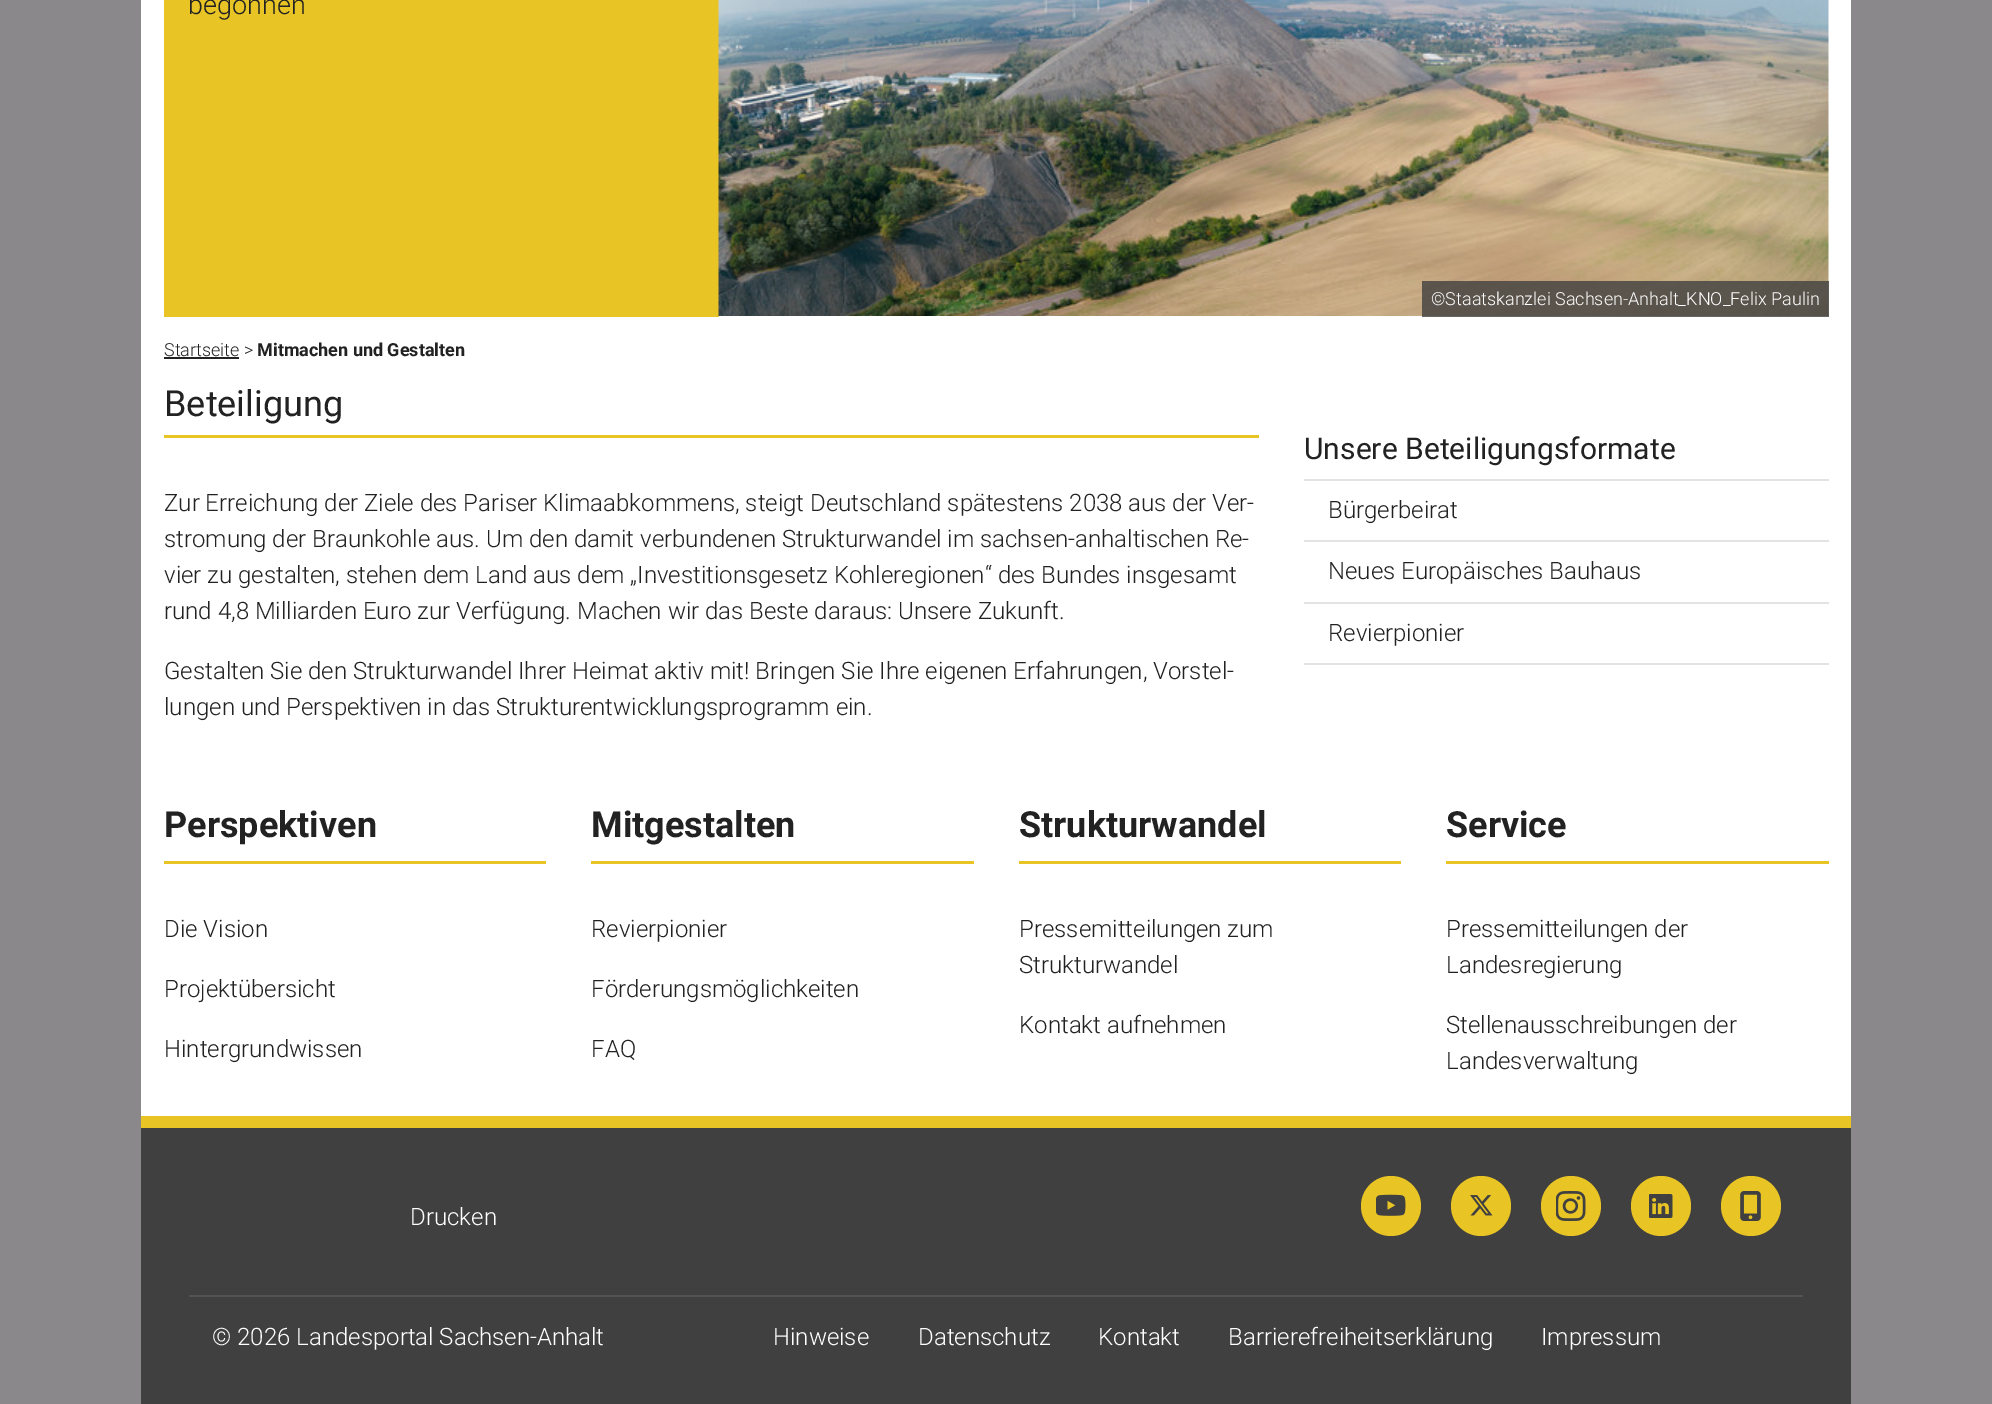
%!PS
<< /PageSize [1992 1404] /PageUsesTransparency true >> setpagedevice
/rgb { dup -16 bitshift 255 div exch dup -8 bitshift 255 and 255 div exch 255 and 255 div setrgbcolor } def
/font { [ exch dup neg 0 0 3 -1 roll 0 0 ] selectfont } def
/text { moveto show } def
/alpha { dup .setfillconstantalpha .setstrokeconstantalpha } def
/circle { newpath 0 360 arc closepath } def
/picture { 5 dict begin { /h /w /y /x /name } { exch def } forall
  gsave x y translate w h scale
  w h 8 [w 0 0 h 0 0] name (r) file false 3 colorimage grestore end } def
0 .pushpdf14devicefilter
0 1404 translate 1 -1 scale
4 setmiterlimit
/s1 { /Roboto-Light 27 font 16#222222 rgb } def
/s2 { /Roboto-Light 18 font 16#FFFFFF rgb } def
/s3 { /Roboto-Light 18 font 16#222222 rgb } def
/s4 { /Roboto-Bold 18 font 16#222222 rgb } def
/s5 { /Roboto-Regular 36 font 16#222222 rgb } def
/s6 { /Roboto-Light 24 font 16#222222 rgb } def
/s7 { /Roboto-Regular 30 font 16#222222 rgb } def
/s8 { /Roboto-Bold 36 font 16#222222 rgb } def
/s9 { /Roboto-Light 24 font 16#FFFFFF rgb } def
16#FFFFFF rgb
0 0 1992 1404 rectfill
gsave 0 0 moveto 1992 0 lineto 1992 1404 lineto 0 1404 lineto closepath clip newpath
<< /ShadingType 2 /ColorSpace /DeviceRGB /Coords [996 -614 996 1404] /Extend [true true] /Function << /FunctionType 3 /Domain [0 1] /Functions [<< /FunctionType 2 /Domain [0 1] /C0 [0.267 0.267 0.267] /C1 [0.541 0.533 0.541] /N 1 >> << /FunctionType 2 /Domain [0 1] /C0 [0.541 0.533 0.541] /C1 [0.541 0.533 0.541] /N 1 >>] /Bounds [0.3] /Encode [0 1 0 1] >> >> shfill grestore
141 0 1710 1116 rectfill
16#E8C425 rgb
164 0 555 317 rectfill
s1
(begonnen) 188 14 text
(pic1.raw) 718 0 1111 316 picture
0.8 alpha
16#404040 rgb
1422 281 407 36 rectfill
1 alpha
s2
(©Staatskanzlei Sachsen-Anhalt_KNO_Felix Paulin) 1431 305 text
s3
(Startseite >) 164 356 text
164 357 75 2 rectfill
s4
(Mitmachen und Gestalten) 257 356 text
16#E8C425 rgb
164 435 1095 3 rectfill
s5
(Beteiligung) 164 416 text
s6
(Zur Erreichung der Ziele des Pariser Klimaabkommens, steigt Deutschland spätestens 2038 aus der Ver-) 164 511 text
(stromung der Braunkohle aus. Um den damit verbundenen Strukturwandel im sachsen-anhaltischen Re-) 164 547 text
(vier zu gestalten, stehen dem Land aus dem „Investitionsgesetz Kohleregionen“ des Bundes insgesamt) 164 583 text
(rund 4,8 Milliarden Euro zur Verfügung. Machen wir das Beste daraus: Unsere Zukunft.) 164 619 text
(Gestalten Sie den Strukturwandel Ihrer Heimat aktiv mit! Bringen Sie Ihre eigenen Erfahrungen, Vorstel-) 164 679 text
(lungen und Perspektiven in das Strukturentwicklungsprogramm ein.) 164 715 text
s7
(Unsere Beteiligungsformate) 1304 459 text
16#E3E3E1 rgb
1304 479 525 2 rectfill
s6
(Bürgerbeirat) 1328 518 text
16#E3E3E1 rgb
1304 540 525 2 rectfill
s6
(Neues Europäisches Bauhaus) 1328 579 text
16#E3E3E1 rgb
1304 602 525 2 rectfill
1304 663 525 2 rectfill
s6
(Revierpionier) 1328 641 text
16#E8C425 rgb
164 861 382 3 rectfill
s8
(Perspektiven) 164 837 text
s6
(Die Vision) 164 937 text
(Projektübersicht) 164 997 text
(Hintergrundwissen) 164 1057 text
16#E8C425 rgb
591 861 383 3 rectfill
s8
(Mitgestalten) 591 837 text
s6
(Revierpionier) 591 937 text
(Förderungsmöglichkeiten) 591 997 text
(FAQ) 591 1057 text
16#E8C425 rgb
1019 861 382 3 rectfill
s8
(Strukturwandel) 1019 837 text
s6
(Pressemitteilungen zum) 1019 937 text
(Strukturwandel) 1019 973 text
(Kontakt aufnehmen) 1019 1033 text
16#E8C425 rgb
1446 861 383 3 rectfill
s8
(Service) 1446 837 text
s6
(Pressemitteilungen der) 1446 937 text
(Landesregierung) 1446 973 text
(Stellenausschreibungen der) 1446 1033 text
(Landesverwaltung) 1446 1069 text
16#404040 rgb
141 1128 1710 276 rectfill
16#E8C425 rgb
141 1116 1710 12 rectfill
16#535353 rgb
189 1295 1614 2 rectfill
s9
(Drucken) 410 1225 text
16#E8C425 rgb
1391 1206 30 circle fill
(pic2.raw) 1376 1194 30 22 picture
1481 1206 30 circle fill
(pic3.raw) 1470 1195 23 21 picture
1571 1206 30 circle fill
(pic4.raw) 1556 1191 30 30 picture
1661 1206 30 circle fill
(pic5.raw) 1649 1194 24 24 picture
1751 1206 30 circle fill
(pic6.raw) 1740 1191 21 30 picture
s9
(© 2026 Landesportal Sachsen-Anhalt) 212 1345 text
(Hinweise) 773 1345 text
(Datenschutz) 918 1345 text
(Kontakt) 1098 1345 text
(Barrierefreiheitserklärung) 1228 1345 text
(Impressum) 1541 1345 text
.poppdf14devicefilter showpage
